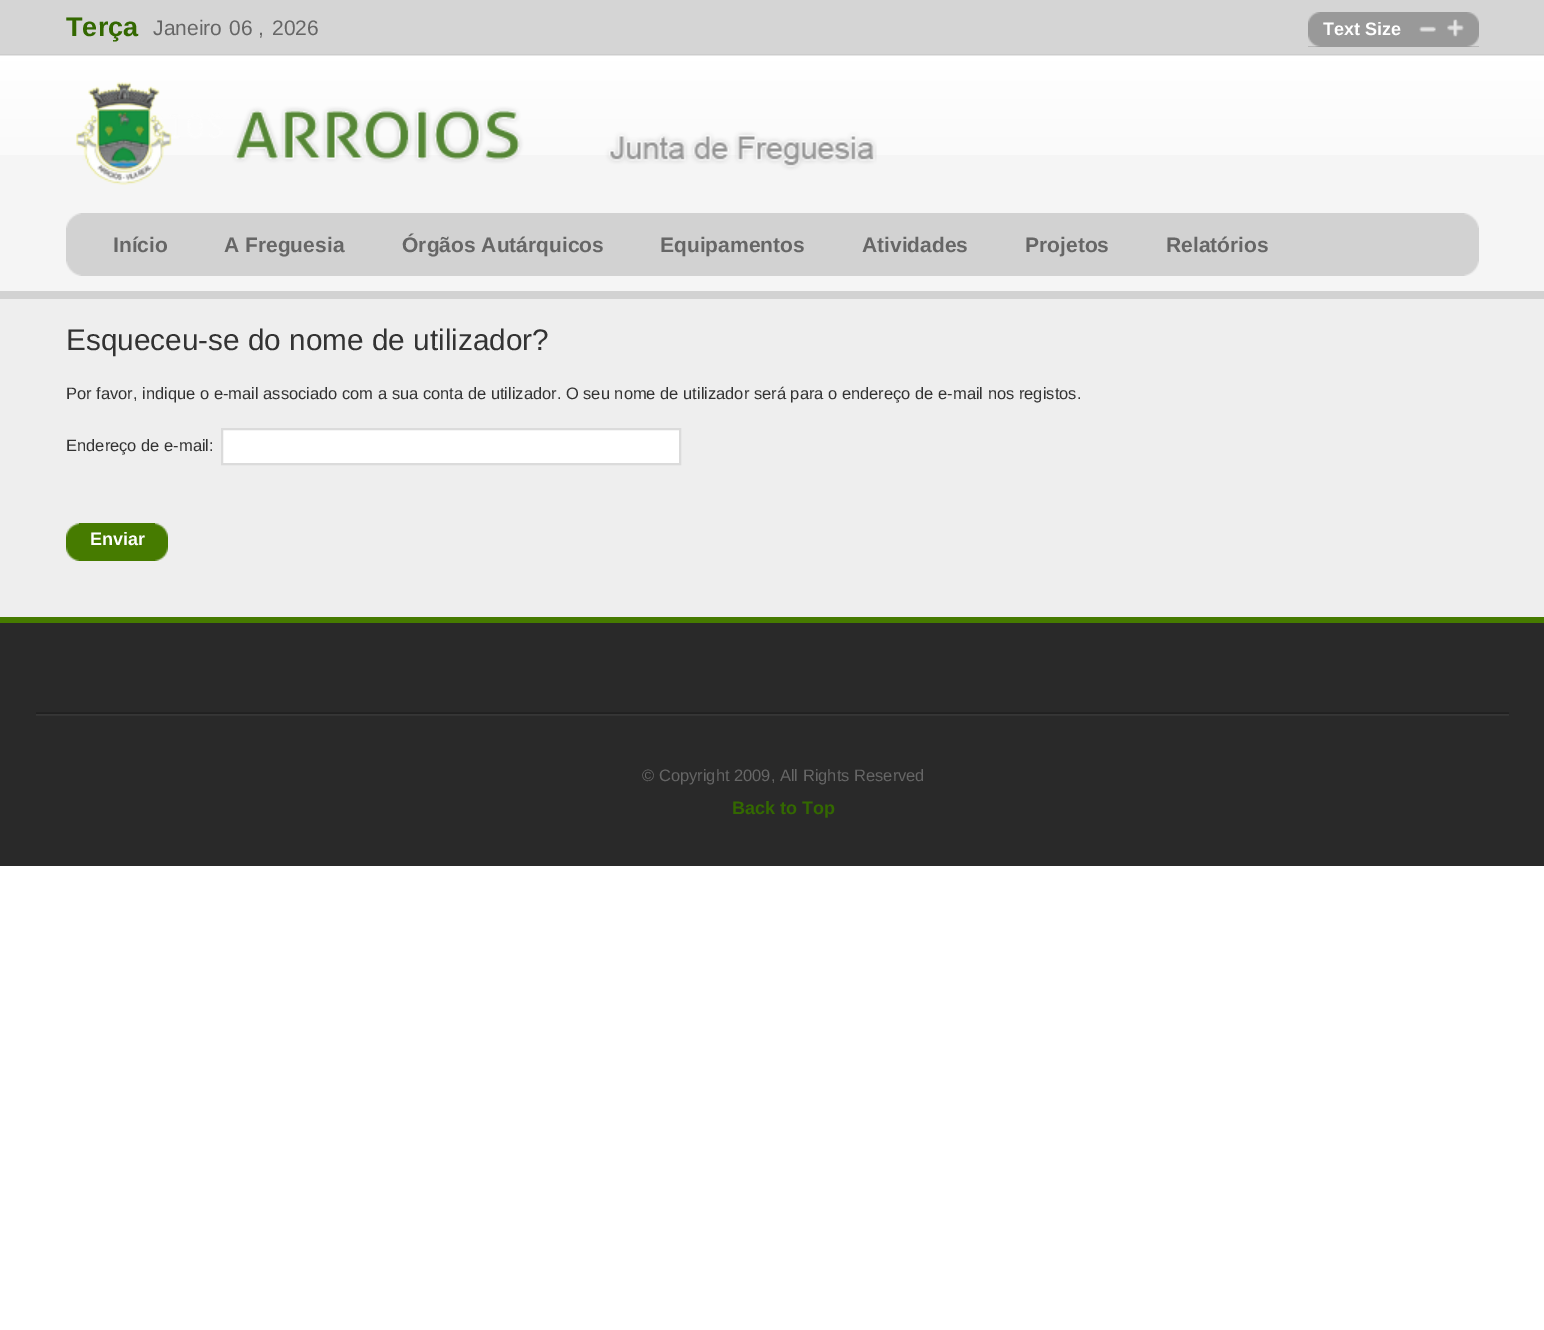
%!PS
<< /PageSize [1544 1330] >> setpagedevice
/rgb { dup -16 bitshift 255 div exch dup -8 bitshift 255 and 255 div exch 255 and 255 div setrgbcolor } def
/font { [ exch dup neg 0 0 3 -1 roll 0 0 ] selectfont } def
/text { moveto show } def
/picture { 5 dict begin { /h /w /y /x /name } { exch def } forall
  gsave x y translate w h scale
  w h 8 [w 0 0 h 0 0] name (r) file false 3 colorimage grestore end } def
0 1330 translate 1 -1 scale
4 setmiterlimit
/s1 { /LiberationSans-Bold 27 font 16#336800 rgb } def
/s2 { /LiberationSans-Regular 21 font 16#666666 rgb } def
/s3 { /LiberationSans-Bold 18 font 16#FFFFFF rgb } def
/s4 { /LiberationSans-Bold 21 font 16#666666 rgb } def
/s5 { /LiberationSans-Regular 29.75 font 16#333333 rgb } def
/s6 { /LiberationSans-Regular 16.5 font 16#333333 rgb } def
/s7 { /LiberationSans-Regular 16.5 font 16#666666 rgb } def
/s8 { /LiberationSans-Bold 18 font 16#336800 rgb } def
16#FFFFFF rgb
0 0 1544 1330 rectfill
16#D5D5D5 rgb
0 0 1544 54 rectfill
16#CCCCCC rgb
0 54 1544 2 rectfill
s1
(Terça) 66 36 text
s2
(Janeiro) 153 35 text
(06 ,) 229 35 text
(2026) 272 35 text
16#999999 rgb
1308 12 171 35 rectfill
(pic1.raw) 1467 12 12 35 picture
(pic2.raw) 1308 12 12 35 picture
s3
(Text Size) 1323 35 text
(pic3.raw) 1419 26 17 6 picture
(pic4.raw) 1447 19 17 18 picture
(pic5.raw) 0 55 1544 100 picture
16#F5F5F5 rgb
0 155 1544 136 rectfill
(pic6.raw) 76 82 801 103 picture
16#D2D2D2 rgb
66 213 1413 63 rectfill
(pic7.raw) 66 213 15 15 picture
(pic8.raw) 1464 213 15 15 picture
s4
(Início) 113 252 text
(A Freguesia) 224 252 text
(Órgãos Autárquicos) 402 252 text
(Equipamentos) 660 252 text
(Atividades) 862 252 text
(Projetos) 1025 252 text
(Relatórios) 1166 252 text
(pic9.raw) 66 261 15 15 picture
(pic10.raw) 1464 261 15 15 picture
16#D2D2D2 rgb
0 291 1544 8 rectfill
16#EEEEEE rgb
0 299 1544 318 rectfill
s5
(Esqueceu-se do nome de utilizador?) 66 350 text
s6
(Por favor, indique o e-mail associado com a sua conta de utilizador. O seu nome de utilizador será para o endereço de e-mail nos registos.) 66 399 text
(Endereço de e-mail:) 66 451 text
16#FFFFFF rgb
222 429 moveto 680 429 lineto 680 464 lineto 222 464 lineto closepath gsave fill grestore
16#DBDBDB rgb
2 setlinewidth
stroke
(pic11.raw) 66 523 13 38 picture
16#467B00 rgb
79 523 76 38 rectfill
(pic12.raw) 155 523 13 38 picture
s3
(Enviar) 90 545 text
16#292929 rgb
0 623 1544 243 rectfill
16#467B00 rgb
0 617 1544 6 rectfill
(pic13.raw) 36 712 1473 4 picture
s7
(© Copyright 2009, All Rights Reserved) 642 781 text
s8
(Back to Top) 732 814 text
showpage
